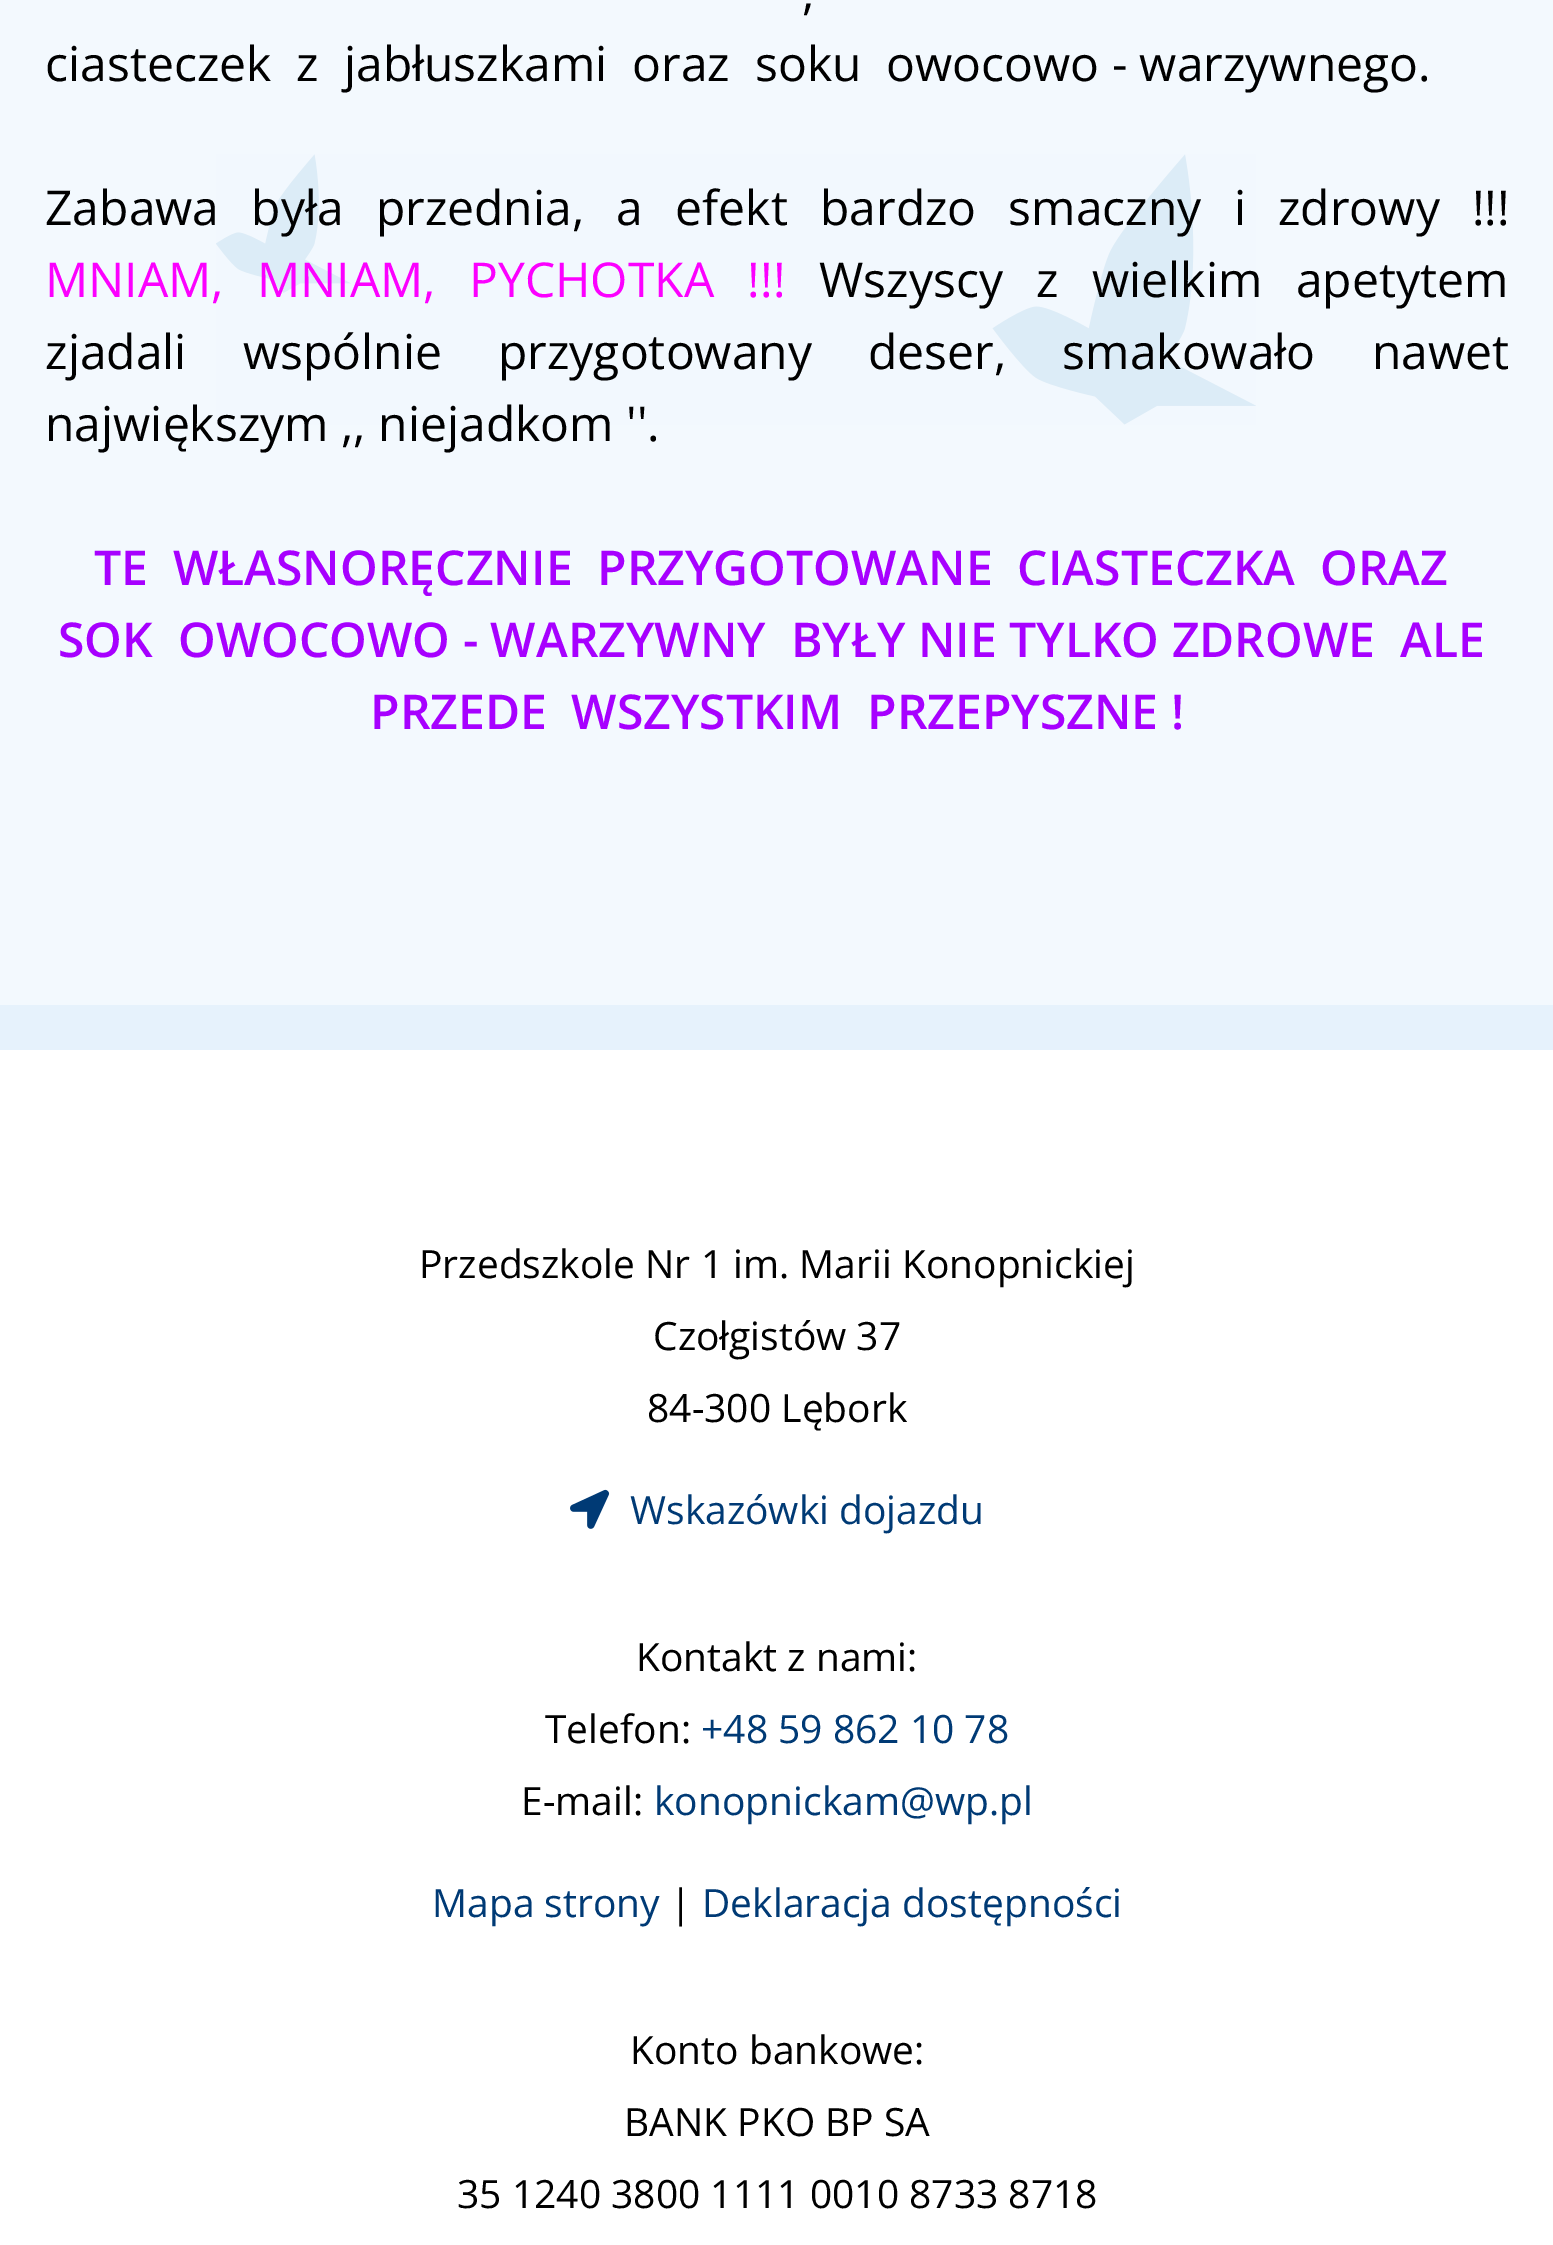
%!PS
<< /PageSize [1553 2245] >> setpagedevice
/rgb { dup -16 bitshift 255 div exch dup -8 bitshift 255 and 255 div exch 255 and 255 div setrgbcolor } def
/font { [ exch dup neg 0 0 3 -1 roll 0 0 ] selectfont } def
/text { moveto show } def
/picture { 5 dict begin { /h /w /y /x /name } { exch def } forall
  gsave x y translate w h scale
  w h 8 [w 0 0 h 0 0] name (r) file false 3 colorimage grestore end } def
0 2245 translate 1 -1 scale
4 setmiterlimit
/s1 { /OpenSans-Regular 48 font 16#000000 rgb } def
/s2 { /OpenSans-Regular 48 font 16#FC00FF rgb } def
/s3 { /OpenSans-SemiBold 48 font 16#A700FF rgb } def
/s4 { /OpenSans-Regular 39 font 16#000000 rgb } def
/s5 { /OpenSans-Regular 39 font 16#003A75 rgb } def
16#E6F2FC rgb
0 0 1553 2245 rectfill
16#F3F9FE rgb
0 0 1553 1005 rectfill
(pic1.raw) 216 154 1040 271 picture
/OpenSans-Regular 48 font
16#000000 rgb
802 9 moveto 1 0 32 (,) widthshow
(ciasteczek  z  jabłuszkami  oraz  soku  owocowo - warzywnego.) 45 81 text
45 225 moveto 19.75 0 32 (Zabawa była przednia, a efekt bardzo smaczny i zdrowy !!!) widthshow
s2
(MNIAM,) 45 297 text
257 297 moveto 21 0 32 (MNIAM, PYCHOTKA !!!) widthshow
16#000000 rgb
819 297 moveto 21 0 32 (Wszyscy z wielkim apetytem) widthshow
45 369 moveto 43.75 0 32 (zjadali wspólnie przygotowany deser, smakowało nawet) widthshow
(największym ,, niejadkom ''.) 45 441 text
s3
(TE  WŁASNORĘCZNIE  PRZYGOTOWANE  CIASTECZKA  ORAZ) 94 585 text
(SOK  OWOCOWO - WARZYWNY  BYŁY NIE TYLKO ZDROWE  ALE) 58 657 text
(PRZEDE  WSZYSTKIM  PRZEPYSZNE !) 370 729 text
16#FFFFFF rgb
0 1050 1553 1195 rectfill
s4
(Przedszkole Nr 1 im. Marii Konopnickiej) 419 1278 text
(Czołgistów 37) 653 1350 text
(84-300 Lębork) 647 1422 text
(pic2.raw) 570 1489 40 40 picture
s5
(Wskazówki dojazdu) 630 1524 text
s4
(Kontakt z nami:) 636 1671 text
(Telefon:) 545 1743 text
s5
(+48 59 862 10 78) 701 1743 text
s4
(E-mail:) 521 1815 text
s5
(konopnickam@wp.pl) 654 1815 text
(Mapa strony) 432 1917 text
s4
(|) 670 1917 text
s5
(Deklaracja dostępności) 702 1917 text
s4
(Konto bankowe:) 630 2064 text
(BANK PKO BP SA) 624 2136 text
(35 1240 3800 1111 0010 8733 8718) 457 2208 text
showpage
